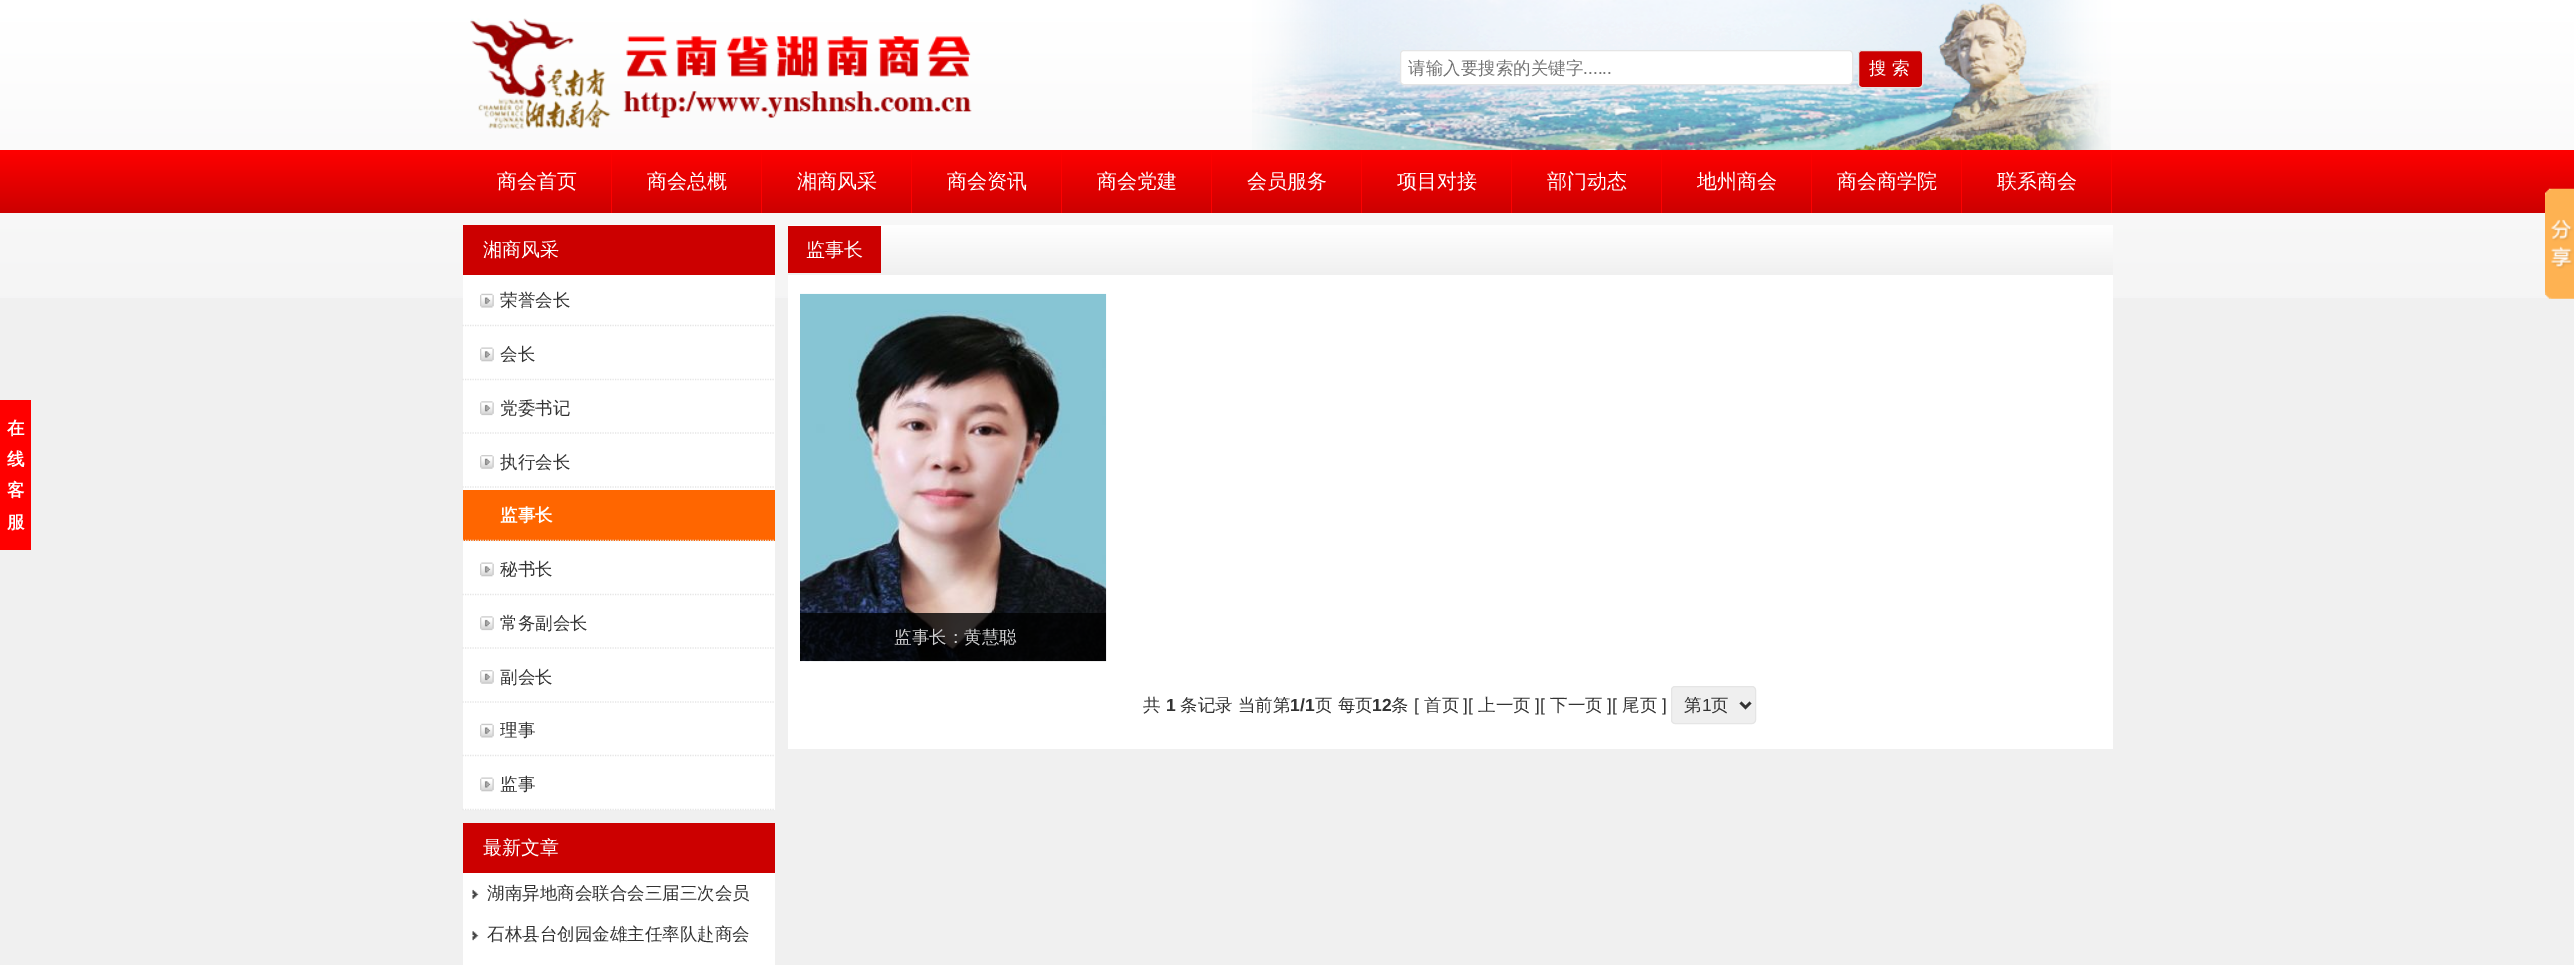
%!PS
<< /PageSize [2574 965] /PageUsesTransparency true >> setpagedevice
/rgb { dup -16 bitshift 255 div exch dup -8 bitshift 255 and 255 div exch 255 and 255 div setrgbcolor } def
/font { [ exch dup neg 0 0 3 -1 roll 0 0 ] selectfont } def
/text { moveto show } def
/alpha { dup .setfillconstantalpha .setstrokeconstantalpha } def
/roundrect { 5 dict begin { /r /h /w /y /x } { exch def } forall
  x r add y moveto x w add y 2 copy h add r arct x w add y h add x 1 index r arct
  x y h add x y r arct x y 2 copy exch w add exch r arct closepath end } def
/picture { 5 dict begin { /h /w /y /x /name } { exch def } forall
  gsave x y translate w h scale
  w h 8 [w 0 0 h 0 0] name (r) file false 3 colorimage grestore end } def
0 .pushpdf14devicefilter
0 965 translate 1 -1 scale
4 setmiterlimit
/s1 { /WenQuanYiZenHei-Medium 17.5 font 16#757575 rgb } def
/s2 { /LiberationSans-Regular 17.5 font 16#757575 rgb } def
/s3 { /WenQuanYiZenHei-Medium 17.5 font 16#FFFFFF rgb } def
/s4 { /WenQuanYiZenHei-Medium 20 font 16#FFFFFF rgb } def
/s5 { /WenQuanYiZenHei-Bold 17.5 font 16#FFFFFF rgb } def
/s6 { /WenQuanYiZenHei-Medium 19 font 16#FFFFFF rgb } def
/s7 { /WenQuanYiZenHei-Medium 17.5 font 16#333333 rgb } def
/s8 { /WenQuanYiZenHei-Medium 17.5 font 16#CDCDCE rgb } def
/s9 { /LiberationSans-Bold 17.5 font 16#333333 rgb } def
/s10 { /LiberationSans-Regular 17.5 font 16#333333 rgb } def
16#F0F0F0 rgb
0 0 2574 965 rectfill
(pic1.raw) 0 0 2574 298 picture
(pic2.raw) 1252 0 859 150 picture
(pic3.raw) 470 18 502 111 picture
16#FFFFFF rgb
1400.5 50.5 452 34 3.5 roundrect gsave fill grestore
16#E5E5E5 rgb
stroke
s1
(请输入要搜索的关键字) 1408 74 text
s2
(......) 1583 74 text
16#CC0000 rgb
1858.5 50.5 64 37 3.5 roundrect gsave fill grestore
16#E5E5E5 rgb
stroke
s3
(搜 索) 1869 74 text
gsave 0 150 moveto 2574 150 lineto 2574 213 lineto 0 213 lineto closepath clip newpath
<< /ShadingType 2 /ColorSpace /DeviceRGB /Coords [1288 150 1288 213] /Extend [true true] /Function << /FunctionType 2 /Domain [0 1] /C0 [1 0 0] /C1 [0.8 0 0] /N 1 >> >> shfill grestore
16#FF0000 rgb
611 150 1 63 rectfill
s4
(商会首页) 497 188 text
16#FF0000 rgb
761 150 1 63 rectfill
s4
(商会总概) 647 188 text
16#FF0000 rgb
911 150 1 63 rectfill
s4
(湘商风采) 797 188 text
16#FF0000 rgb
1061 150 1 63 rectfill
s4
(商会资讯) 947 188 text
16#FF0000 rgb
1211 150 1 63 rectfill
s4
(商会党建) 1097 188 text
16#FF0000 rgb
1361 150 1 63 rectfill
s4
(会员服务) 1247 188 text
16#FF0000 rgb
1511 150 1 63 rectfill
s4
(项目对接) 1397 188 text
16#FF0000 rgb
1661 150 1 63 rectfill
s4
(部门动态) 1547 188 text
16#FF0000 rgb
1811 150 1 63 rectfill
s4
(地州商会) 1697 188 text
16#FF0000 rgb
1961 150 1 63 rectfill
s4
(商会商学院) 1837 188 text
16#FF0000 rgb
2111 150 1 63 rectfill
s4
(联系商会) 1997 188 text
16#FF0000 rgb
0 400 31 150 rectfill
s5
(在) 7 434 text
(线) 7 465 text
(客) 7 496 text
(服) 7 528 text
463 275 312 535 rectfill
16#CC0000 rgb
463 225 312 50 rectfill
s6
(湘商风采) 483 256 text
(pic4.raw) 480 293 14 15 picture
16#E5E5E5 rgb
1.2 setlinewidth
[1.25 1.25] 0 setdash
462.5 325.5 moveto 775 325.5 lineto stroke
s7
(荣誉会长) 500 306 text
(pic5.raw) 480 347 14 15 picture
16#E5E5E5 rgb
462.5 379.5 moveto 775 379.5 lineto stroke
s7
(会长) 500 360 text
(pic6.raw) 480 401 14 15 picture
16#E5E5E5 rgb
462.5 433 moveto 775 433 lineto stroke
s7
(党委书记) 500 414 text
(pic7.raw) 480 455 14 14 picture
16#E5E5E5 rgb
462.5 487 moveto 775 487 lineto stroke
s7
(执行会长) 500 468 text
16#FF6600 rgb
463 490 312 51 rectfill
16#E5E5E5 rgb
462.5 540.5 moveto 775 540.5 lineto stroke
s5
(监事长) 500 521 text
(pic5.raw) 480 562 14 15 picture
16#E5E5E5 rgb
462.5 594.5 moveto 775 594.5 lineto stroke
s7
(秘书长) 500 575 text
(pic6.raw) 480 616 14 15 picture
16#E5E5E5 rgb
462.5 648 moveto 775 648 lineto stroke
s7
(常务副会长) 500 629 text
(pic7.raw) 480 670 14 14 picture
16#E5E5E5 rgb
462.5 702 moveto 775 702 lineto stroke
s7
(副会长) 500 683 text
(pic8.raw) 480 723 14 15 picture
16#E5E5E5 rgb
462.5 755.5 moveto 775 755.5 lineto stroke
s7
(理事) 500 736 text
(pic5.raw) 480 777 14 15 picture
16#E5E5E5 rgb
462.5 809.5 moveto 775 809.5 lineto stroke
s7
(监事) 500 790 text
16#FFFFFF rgb
463 873 312 92 rectfill
16#CC0000 rgb
463 823 312 50 rectfill
s6
(最新文章) 483 854 text
(pic9.raw) 472 889 7 10 picture
s7
(湖南异地商会联合会三届三次会员) 487 899 text
(pic10.raw) 472 931 7 10 picture
(石林县台创园金雄主任率队赴商会) 487 940 text
16#FFFFFF rgb
788 275 1325 474 rectfill
gsave 788 225 moveto 2113 225 lineto 2113 275 lineto 788 275 lineto closepath clip newpath
<< /ShadingType 2 /ColorSpace /DeviceRGB /Coords [1450 225 1450 275] /Extend [true true] /Function << /FunctionType 2 /Domain [0 1] /C0 [1 1 1] /C1 [0.941 0.941 0.941] /N 1 >> >> shfill grestore
16#CC0000 rgb
788 226 93 47 rectfill
s6
(监事长) 806 256 text
(pic11.raw) 800 293 307 369 picture
0.8 alpha
16#000000 rgb
800 613 306 48 rectfill
1 alpha
s8
(监事长：黄慧聪) 894 643 text
s7
(共) 1143 711 text
s9
(1) 1166 711 text
s7
(条记录 当前第) 1180 711 text
s9
(1/1) 1290 711 text
s7
(页 每页) 1315 711 text
s9
(12) 1372 711 text
s7
(条) 1391 711 text
s10
([) 1414 711 text
s7
(首页) 1424 711 text
s10
(][) 1463 711 text
s7
(上一页) 1478 711 text
s10
(][) 1535 711 text
s7
(下一页) 1550 711 text
s10
(][) 1607 711 text
s7
(尾页) 1622 711 text
s10
(]) 1662 711 text
16#EFEFEF rgb
1671.5 686.5 84 37 3.5 roundrect gsave fill grestore
16#E5E5E5 rgb
1 setlinewidth
[] 0 setdash
stroke
16#333333 rgb
2.5 setlinewidth
1740.5 702.5 moveto 1745.5 707.5 lineto 1750.5 702.5 lineto stroke
s7
(第) 1684 711 text
s10
(1) 1702 711 text
s7
(页) 1711 711 text
(pic12.raw) 2545 188 29 111 picture
.poppdf14devicefilter showpage
